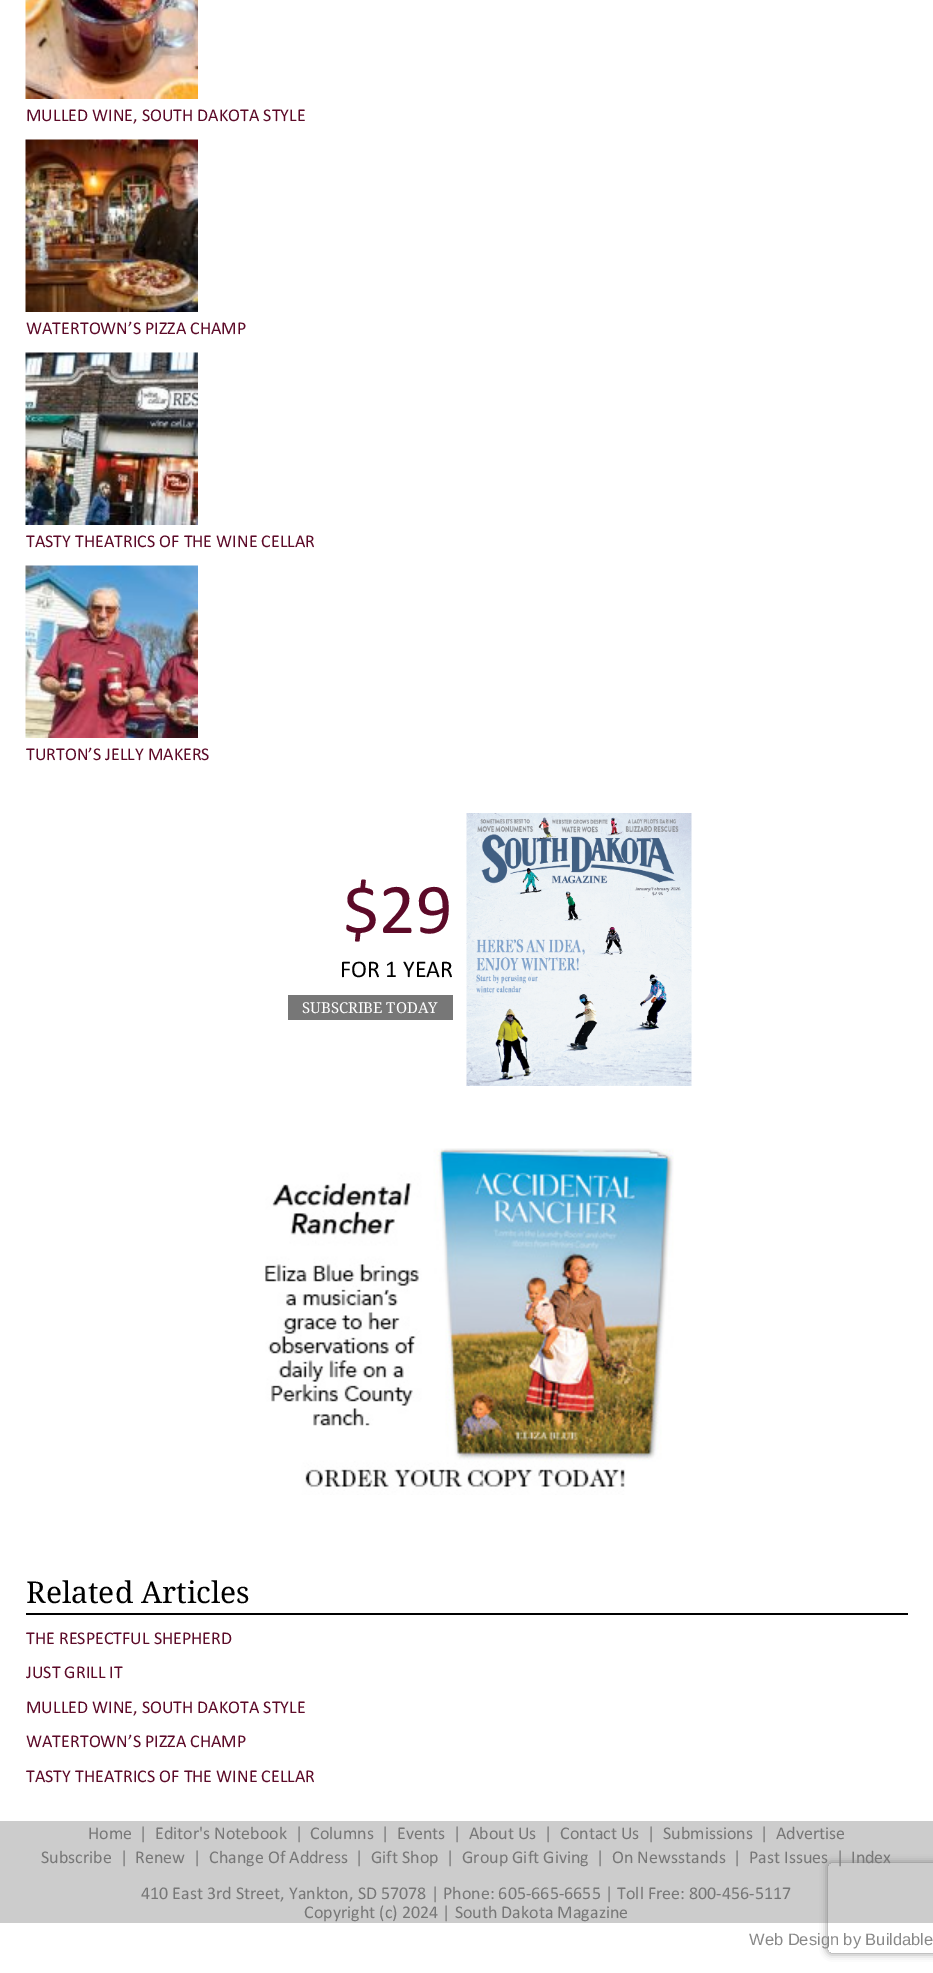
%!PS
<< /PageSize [933 1973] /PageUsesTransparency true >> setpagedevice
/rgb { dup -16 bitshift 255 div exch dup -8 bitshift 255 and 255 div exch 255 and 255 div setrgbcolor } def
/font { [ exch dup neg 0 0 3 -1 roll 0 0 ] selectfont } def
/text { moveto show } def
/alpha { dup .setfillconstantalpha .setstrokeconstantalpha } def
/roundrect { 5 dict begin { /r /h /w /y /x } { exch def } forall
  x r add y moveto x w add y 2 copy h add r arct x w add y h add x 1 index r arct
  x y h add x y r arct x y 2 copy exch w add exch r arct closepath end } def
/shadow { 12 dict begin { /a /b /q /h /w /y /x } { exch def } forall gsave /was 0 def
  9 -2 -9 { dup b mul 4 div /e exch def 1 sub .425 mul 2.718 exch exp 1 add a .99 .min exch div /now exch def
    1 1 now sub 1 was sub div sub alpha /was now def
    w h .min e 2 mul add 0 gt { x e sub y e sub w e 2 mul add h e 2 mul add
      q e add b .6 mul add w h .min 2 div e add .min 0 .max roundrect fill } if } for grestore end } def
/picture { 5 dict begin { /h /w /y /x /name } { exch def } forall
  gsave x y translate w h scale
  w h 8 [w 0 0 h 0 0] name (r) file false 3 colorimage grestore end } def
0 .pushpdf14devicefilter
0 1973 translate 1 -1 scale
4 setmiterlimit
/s1 { /Calibri-Regular 18 font 16#5C0A28 rgb } def
/s2 { /Calibri-Regular 72 font 16#5C0A28 rgb } def
/s3 { /Calibri-Regular 24 font 16#000000 rgb } def
/s4 { /DroidSerif-Regular 15 font 16#FFFFFF rgb } def
/s5 { /DroidSerif-Regular 30 font 16#000000 rgb } def
/s6 { /Calibri-Regular 18 font 16#777777 rgb } def
/s7 { /LiberationSans-Regular 16.5 font 16#888888 rgb } def
16#FFFFFF rgb
0 0 933 1973 rectfill
16#CCCCCC rgb
0 1821 933 102 rectfill
(pic1.raw) 25 0 173 99 picture
s1
(MULLED WINE, SOUTH DAKOTA STYLE) 26 121 text
(pic2.raw) 25 139 173 173 picture
(WATERTOWN’S PIZZA CHAMP) 26 334 text
(pic3.raw) 25 352 173 173 picture
(TASTY THEATRICS OF THE WINE CELLAR) 26 547 text
(pic4.raw) 25 565 173 173 picture
(TURTON’S JELLY MAKERS) 26 760 text
s2
($29) 343 933 text
s3
(FOR 1 YEAR) 340 977 text
16#777777 rgb
288 995 165 25 rectfill
s4
(SUBSCRIBE TODAY) 302 1013 text
(pic5.raw) 466 813 226 273 picture
(pic6.raw) 265 1148 409 347 picture
16#000000 rgb
26 1613 882 2 rectfill
s5
(Related Articles) 26 1603 text
s1
(THE RESPECTFUL SHEPHERD) 26 1644 text
(JUST GRILL IT) 26 1678 text
(MULLED WINE, SOUTH DAKOTA STYLE) 26 1713 text
(WATERTOWN’S PIZZA CHAMP) 26 1747 text
(TASTY THEATRICS OF THE WINE CELLAR) 26 1782 text
s6
(Home) 88 1839 text
(|) 139 1839 text
(Editor's Notebook) 155 1839 text
(|) 295 1839 text
(Columns) 310 1839 text
(|) 381 1839 text
(Events) 397 1839 text
(|) 453 1839 text
(About Us) 469 1839 text
(|) 544 1839 text
(Contact Us) 560 1839 text
(|) 647 1839 text
(Submissions) 663 1839 text
(|) 760 1839 text
(Advertise) 776 1839 text
(Subscribe) 41 1863 text
(|) 120 1863 text
(Renew) 135 1863 text
(|) 193 1863 text
(Change Of Address) 209 1863 text
(|) 355 1863 text
(Gift Shop) 371 1863 text
(|) 446 1863 text
(Group Gift Giving) 462 1863 text
(|) 596 1863 text
(On Newsstands) 612 1863 text
(|) 733 1863 text
(Past Issues) 749 1863 text
(|) 836 1863 text
(Index) 851 1863 text
(410 East 3rd Street, Yankton, SD 57078 | Phone: 605-665-6655 | Toll Free: 800-456-5117) 141 1899 text
(Copyright \(c\) 2024 | South Dakota Magazine) 304 1918 text
gsave
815 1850 moveto 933 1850 lineto 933 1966 lineto 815 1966 lineto closepath 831 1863 moveto 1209 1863 lineto 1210.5 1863 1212 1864.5 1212 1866 curveto 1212 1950 lineto 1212 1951.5 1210.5 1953 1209 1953 curveto 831 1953 lineto 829.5 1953 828 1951.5 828 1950 curveto 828 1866 lineto 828 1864.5 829.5 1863 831 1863 curveto closepath eoclip newpath
16#808080 rgb
828 1863 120 90 3 4 1 shadow
grestore
s7
(Web Design by Buildable) 749 1945 text
.poppdf14devicefilter showpage
